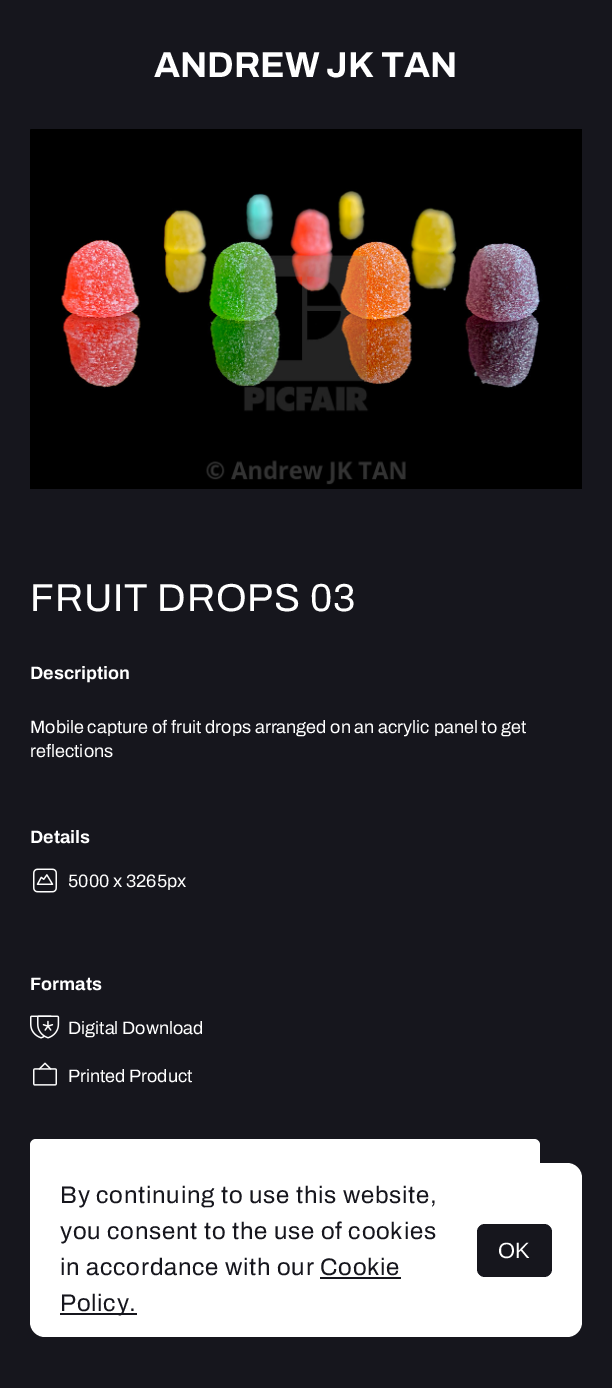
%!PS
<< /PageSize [612 1388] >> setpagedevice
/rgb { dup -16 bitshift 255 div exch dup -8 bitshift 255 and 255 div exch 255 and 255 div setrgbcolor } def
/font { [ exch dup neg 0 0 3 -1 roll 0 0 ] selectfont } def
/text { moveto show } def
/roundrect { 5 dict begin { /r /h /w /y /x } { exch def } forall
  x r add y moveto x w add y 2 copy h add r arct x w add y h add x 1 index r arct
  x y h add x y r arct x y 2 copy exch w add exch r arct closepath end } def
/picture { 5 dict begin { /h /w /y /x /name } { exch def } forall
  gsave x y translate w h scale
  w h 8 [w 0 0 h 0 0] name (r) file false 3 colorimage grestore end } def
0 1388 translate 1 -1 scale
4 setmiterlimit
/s1 { /Archivo-Bold 36 font 16#FFFFFF rgb } def
/s2 { /Archivo-Bold 18 font 16#FFFFFF rgb } def
/s3 { /Archivo-Regular 18 font 16#FFFFFF rgb } def
/s4 { /LiberationSans-Regular 22 font 16#FFFFFF rgb } def
16#16161D rgb
0 0 612 1388 rectfill
s1
(ANDREW JK TAN) 154 77 text
(pic1.raw) 30 129 552 360 picture
/Archivo-Regular 39 font
30 611 moveto 0.75 0 (FRUIT DROPS 03) ashow
s2
(Description) 30 679 text
s3
(Mobile capture of fruit drops arranged on an acrylic panel to get) 30 733 text
(reflections) 30 757 text
s2
(Details) 30 843 text
(pic2.raw) 33 868 24 25 picture
s3
(5000 x 3265px) 68 887 text
s2
(Formats) 30 990 text
(pic3.raw) 30 1015 30 24 picture
s3
(Digital Download) 68 1034 text
(pic4.raw) 33 1062 24 24 picture
(Printed Product) 68 1082 text
30 1139 510 70 6 roundrect fill
30 1163 552 174 15 roundrect fill
/Archivo-Regular 24 font
16#16161D rgb
60 1203 moveto 0.75 0 (By continuing to use this website,) ashow
60 1239 moveto 0.75 0 (you consent to the use of cookies) ashow
60 1275 moveto 0.75 0 (in accordance with our Cookie) ashow
60 1313 77 2 rectfill
60 1311 moveto 0.75 0 (Policy.) ashow
320 1277 81 2 rectfill
477 1224 75 53 8 roundrect fill
s4
(OK) 498 1258 text
showpage
